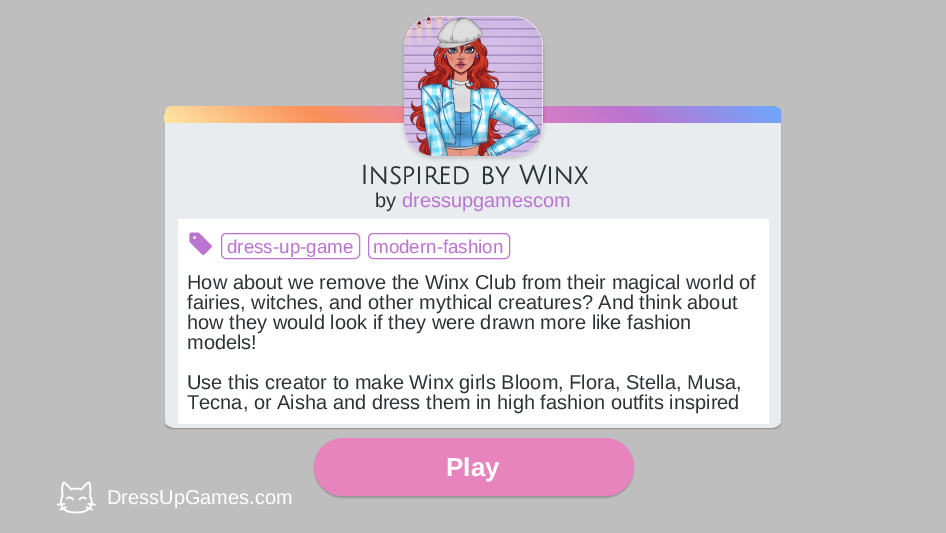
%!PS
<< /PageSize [946 533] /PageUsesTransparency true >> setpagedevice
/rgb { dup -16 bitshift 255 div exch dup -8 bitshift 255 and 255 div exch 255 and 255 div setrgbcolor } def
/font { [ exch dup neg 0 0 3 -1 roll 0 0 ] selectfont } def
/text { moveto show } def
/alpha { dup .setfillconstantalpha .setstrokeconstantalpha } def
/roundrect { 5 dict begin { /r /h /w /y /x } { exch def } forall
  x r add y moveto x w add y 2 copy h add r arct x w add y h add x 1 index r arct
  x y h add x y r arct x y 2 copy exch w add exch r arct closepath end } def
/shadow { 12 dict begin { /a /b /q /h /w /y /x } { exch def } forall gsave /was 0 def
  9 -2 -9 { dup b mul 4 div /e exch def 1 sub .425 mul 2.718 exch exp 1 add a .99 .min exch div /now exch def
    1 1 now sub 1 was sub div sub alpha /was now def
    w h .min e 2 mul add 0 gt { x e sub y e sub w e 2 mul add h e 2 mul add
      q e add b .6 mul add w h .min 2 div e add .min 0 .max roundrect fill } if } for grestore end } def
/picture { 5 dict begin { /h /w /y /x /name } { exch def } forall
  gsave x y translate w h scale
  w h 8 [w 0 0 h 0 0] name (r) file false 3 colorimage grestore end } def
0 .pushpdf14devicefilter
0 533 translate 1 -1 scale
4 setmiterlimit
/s1 { /JuliusSansOne-Bold 26 font 16#2D3436 rgb } def
/s2 { /LiberationSans-Regular 20 font 16#2D3436 rgb } def
/s3 { /LiberationSans-Regular 20 font 16#BB74CF rgb } def
/s4 { /LiberationSans-Regular 18.75 font 16#BB74CF rgb } def
/s5 { /LiberationSans-Bold 26 font 16#FFFFFF rgb } def
/s6 { /LiberationSans-Regular 20 font 16#FFFFFF rgb } def
16#BEBEBE rgb
0 0 946 533 rectfill
16#000000 rgb
165 108 616 321 6 0.5 0.2 shadow
16#E9ECEF rgb
177 106 moveto 769 106 lineto 776 106 781 109 781 113 curveto 781 421 lineto 781 425 776 428 769 428 curveto 177 428 lineto 171 428 165 425 165 421 curveto 165 113 lineto 165 109 171 106 177 106 curveto closepath fill
gsave 177 106 moveto 163 106 165 112 165 123 curveto 781 123 lineto 781 111 lineto 780 108 775 106 769 106 curveto closepath clip newpath
<< /ShadingType 2 /ColorSpace /DeviceRGB /Coords [315 273 631 -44] /Extend [true true] /Function << /FunctionType 3 /Domain [0 1] /Functions [<< /FunctionType 2 /Domain [0 1] /C0 [1 0.906 0.647] /C1 [0.98 0.561 0.349] /N 1 >> << /FunctionType 2 /Domain [0 1] /C0 [0.98 0.561 0.349] /C1 [0.906 0.514 0.741] /N 1 >> << /FunctionType 2 /Domain [0 1] /C0 [0.906 0.514 0.741] /C1 [0.733 0.455 0.812] /N 1 >> << /FunctionType 2 /Domain [0 1] /C0 [0.733 0.455 0.812] /C1 [0.427 0.659 1] /N 1 >>] /Bounds [0.25 0.5 0.75] /Encode [0 1 0 1 0 1 0 1] >> >> shfill grestore
16#000000 rgb
404 18 139 140 31 2 0.2 shadow
16#FFFFFF rgb
404 16 139 140 31 roundrect fill
(pic1.raw) 404 16 139 141 picture
s1
(Inspired by Winx) 360 184 text
s2
(by) 375 207 text
s3
(dressupgamescom) 402 207 text
16#FFFFFF rgb
178 219 591 205 rectfill
(pic2.raw) 189 232 23 23 picture
16#BB74CF rgb
221.5 233.5 138 25 4.5 roundrect stroke
s4
(dress-up-game) 227 253 text
368.5 233.5 141 25 4.5 roundrect stroke
(modern-fashion) 373 253 text
s2
(How about we remove the Winx Club from their magical world of) 187 289 text
(fairies, witches, and other mythical creatures? And think about) 187 309 text
(how they would look if they were drawn more like fashion) 187 329 text
(models!) 187 349 text
(Use this creator to make Winx girls Bloom, Flora, Stella, Musa,) 187 389 text
(Tecna, or Aisha and dress them in high fashion outfits inspired) 187 409 text
16#000000 rgb
314 439 320 59 29.5 0.5 0.2 shadow
16#E783BD rgb
314 438 320 58 29 roundrect fill
s5
(Play) 446 476 text
(pic3.raw) 56 481 40 33 picture
s6
(DressUpGames.com) 107 504 text
.poppdf14devicefilter showpage
